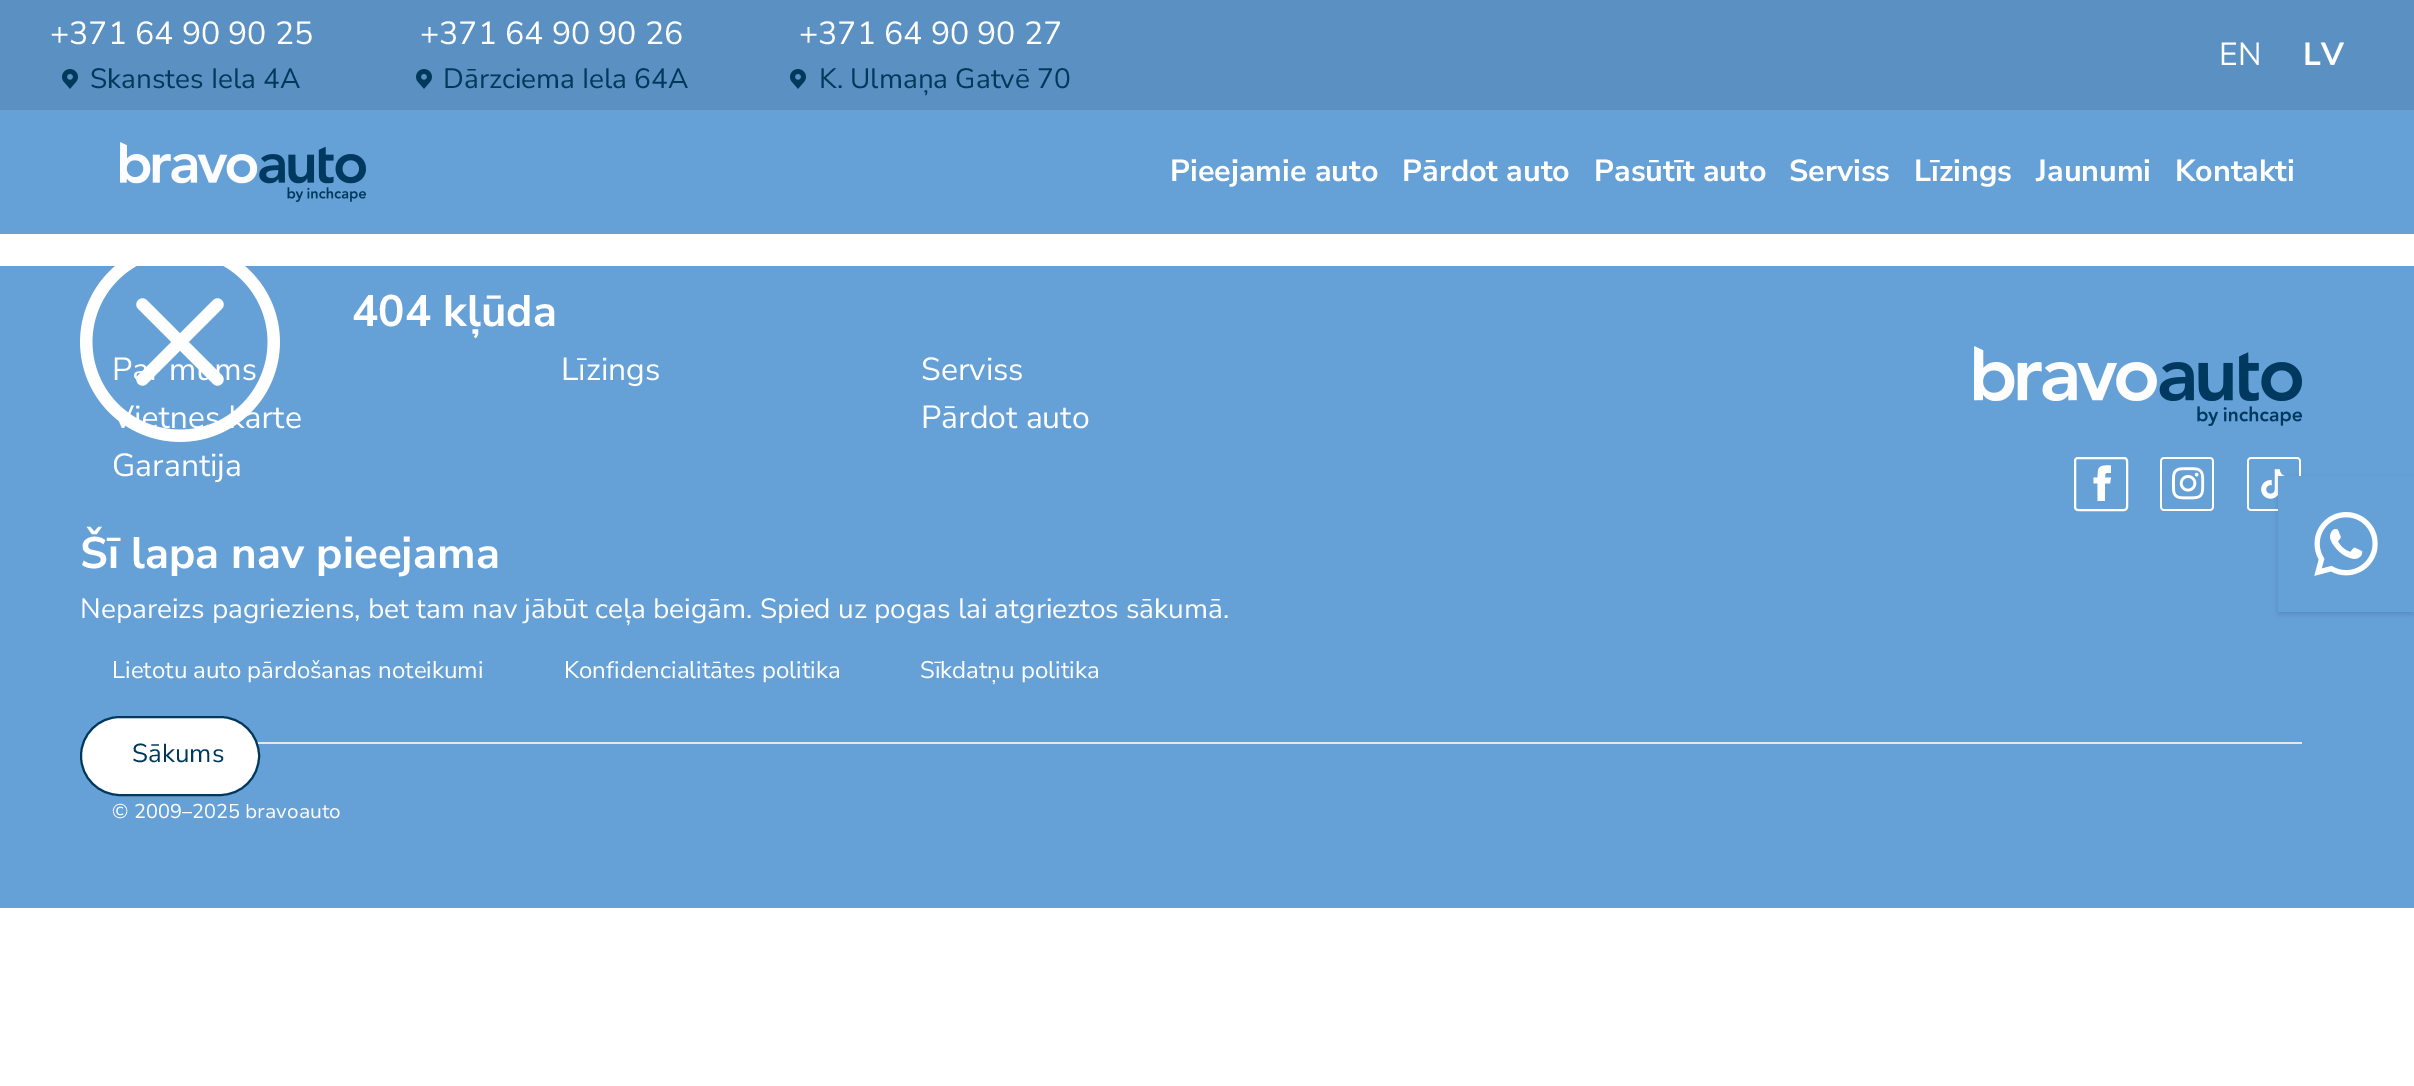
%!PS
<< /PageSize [2414 1086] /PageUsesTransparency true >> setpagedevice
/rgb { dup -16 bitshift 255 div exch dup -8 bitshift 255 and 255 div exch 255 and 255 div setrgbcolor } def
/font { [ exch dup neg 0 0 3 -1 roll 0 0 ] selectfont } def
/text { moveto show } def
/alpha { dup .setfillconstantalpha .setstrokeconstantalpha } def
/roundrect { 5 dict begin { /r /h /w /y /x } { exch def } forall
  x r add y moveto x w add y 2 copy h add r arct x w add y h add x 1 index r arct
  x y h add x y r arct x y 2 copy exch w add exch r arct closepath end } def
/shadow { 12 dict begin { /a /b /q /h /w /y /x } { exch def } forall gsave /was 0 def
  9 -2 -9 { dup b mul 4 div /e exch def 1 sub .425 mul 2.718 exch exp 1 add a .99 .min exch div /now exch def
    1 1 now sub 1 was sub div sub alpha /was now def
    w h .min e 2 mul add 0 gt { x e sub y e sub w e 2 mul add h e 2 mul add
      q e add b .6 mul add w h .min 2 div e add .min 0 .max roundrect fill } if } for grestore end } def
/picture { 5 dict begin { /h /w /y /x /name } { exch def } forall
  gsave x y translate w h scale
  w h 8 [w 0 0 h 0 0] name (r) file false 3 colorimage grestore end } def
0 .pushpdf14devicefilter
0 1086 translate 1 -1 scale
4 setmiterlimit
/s1 { /NunitoSans-Regular 32 font 16#FFFFFF rgb } def
/s2 { /NunitoSans-Regular 28 font 16#00395C rgb } def
/s3 { /NunitoSans-Bold 32 font 16#FFFFFF rgb } def
/s4 { /NunitoSans-Bold 30.5 font 16#FFFFFF rgb } def
/s5 { /NunitoSans-Bold 44 font 16#FFFFFF rgb } def
/s6 { /NunitoSans-Regular 28 font 16#FFFFFF rgb } def
/s7 { /NunitoSans-Regular 26 font 16#00395C rgb } def
/s8 { /NunitoSans-Regular 24 font 16#FFFFFF rgb } def
/s9 { /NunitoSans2-Regular 20 font 16#FFFFFF rgb } def
16#FFFFFF rgb
0 0 2414 1086 rectfill
16#65A1D7 rgb
0 110 2414 124 rectfill
16#5B90C2 rgb
0 0 2414 110 rectfill
s1
(+371 64 90 90 25) 50 44 text
(pic1.raw) 62 69 16 20 picture
s2
(Skanstes Iela 4A) 90 88 text
s1
(+371 64 90 90 26) 420 44 text
(pic1.raw) 416 69 16 20 picture
s2
(Dārzciema Iela 64A) 443 88 text
s1
(+371 64 90 90 27) 799 44 text
(pic1.raw) 790 69 16 20 picture
s2
(K. Ulmaņa Gatvē 70) 819 88 text
s1
(EN) 2219 65 text
s3
(LV) 2303 65 text
(pic2.raw) 120 142 246 60 picture
s4
(Pieejamie auto) 1170 181 text
(Pārdot auto) 1402 181 text
(Pasūtīt auto) 1594 181 text
(Serviss) 1789 181 text
(Līzings) 1914 181 text
(Jaunumi) 2036 181 text
(Kontakti) 2175 181 text
16#65A1D7 rgb
0 266 2414 642 rectfill
s1
(P) 112 380 text
(m) 169 380 text
(s) 242 380 text
(tne) 158 428 text
(arte) 245 428 text
(pic3.raw) 80 266 200 176 picture
s5
(404 kļūda) 352 326 text
(Šī lapa nav pieejama) 80 568 text
s6
(Nepareizs pagrieziens, bet tam nav jābūt ceļa beigām. Spied uz pogas lai atgrieztos sākumā.) 80 618 text
16#E5E7EB rgb
257 742 2045 2 rectfill
16#FFFFFF rgb
81 717 178 78 39 roundrect gsave fill grestore
16#00395C rgb
2 setlinewidth
stroke
s7
(Sākums) 132 762 text
s1
(Garantija) 112 476 text
(Līzings) 561 380 text
(Serviss) 921 380 text
(Pārdot auto) 921 428 text
(pic4.raw) 1974 346 328 80 picture
2097.5 477.5 moveto 2093.5 477.5 lineto 2093.5 483.5 lineto 2097.5 483.5 lineto 2097.5 501 lineto 2105 501 lineto 2105 483.5 lineto 2110 483.5 lineto 2111 477.5 lineto 2105 477.5 lineto 2105 472 2105.5 473 2111 473 curveto 2111 465.5 lineto 2106 465.5 2098.5 464.5 2098 471 curveto closepath fill
2075 458 52 52 3 roundrect stroke
(pic5.raw) 2160 457 54 54 picture
(pic6.raw) 2247 457 54 54 picture
s8
(Lietotu auto pārdošanas noteikumi) 112 678 text
(Konfidencialitātes politika) 564 678 text
(Sīkdatņu politika) 920 678 text
s9
(© 2009–2025 bravoauto) 112 818 text
16#000000 rgb
2280 480 132 132 0 2 0.1 shadow
2278 478 136 136 0 3 0.1 shadow
16#65A1D7 rgb
2278 476 136 136 rectfill
(pic7.raw) 2314 512 64 64 picture
.poppdf14devicefilter showpage
